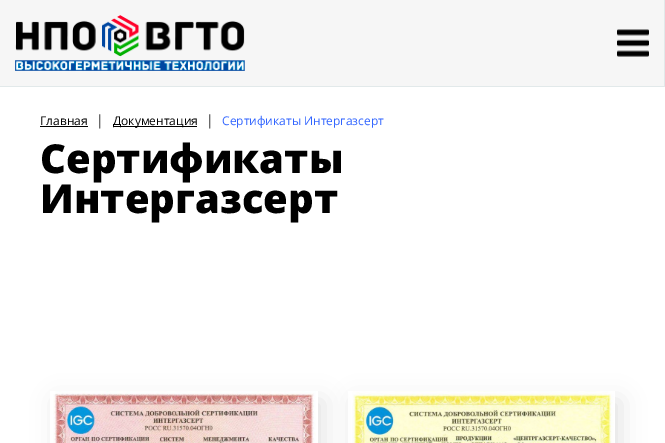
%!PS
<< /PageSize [665 443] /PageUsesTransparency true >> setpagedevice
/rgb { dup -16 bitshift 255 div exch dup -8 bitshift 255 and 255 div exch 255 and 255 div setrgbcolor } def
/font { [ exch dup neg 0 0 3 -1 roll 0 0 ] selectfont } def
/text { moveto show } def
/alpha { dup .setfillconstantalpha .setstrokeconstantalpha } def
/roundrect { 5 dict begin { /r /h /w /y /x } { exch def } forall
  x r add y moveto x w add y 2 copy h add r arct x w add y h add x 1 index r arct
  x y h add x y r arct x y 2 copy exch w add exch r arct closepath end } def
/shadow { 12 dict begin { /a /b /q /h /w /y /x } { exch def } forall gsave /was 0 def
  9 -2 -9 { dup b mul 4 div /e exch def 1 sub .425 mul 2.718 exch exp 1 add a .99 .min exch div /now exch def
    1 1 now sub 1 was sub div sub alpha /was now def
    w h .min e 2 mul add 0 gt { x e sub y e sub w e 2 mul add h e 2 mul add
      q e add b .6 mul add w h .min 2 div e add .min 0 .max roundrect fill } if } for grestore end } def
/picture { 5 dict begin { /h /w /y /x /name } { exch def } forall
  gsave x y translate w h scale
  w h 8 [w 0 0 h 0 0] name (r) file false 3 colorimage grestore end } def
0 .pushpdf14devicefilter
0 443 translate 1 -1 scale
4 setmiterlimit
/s1 { /OpenSans-Regular 12 font 16#000000 rgb } def
/s2 { /OpenSans-Regular 14 font 16#333333 rgb } def
/s3 { /OpenSans-Regular 12 font 16#3064FF rgb } def
/s4 { /OpenSans-ExtraBold 40 font 16#000000 rgb } def
16#FFFFFF rgb
0 0 665 443 rectfill
16#F6F6F6 rgb
0 0 664 86 rectfill
16#E2E9EA rgb
664 0 1 87 rectfill
0 86 664 1 rectfill
(pic2.raw) 15 20 230 51 picture
(pic1.raw) 102 15 37 41 picture
(pic3.raw) 617 29 32 28 picture
s1
(Главная) 40 125 text
40 126 48 1 rectfill
s2
(|) 96 125 text
16#000000 rgb
113 126 84 1 rectfill
s1
(Документация) 113 125 text
s2
(|) 206 125 text
s3
(Сертификаты Интергазсерт) 222 125 text
s4
(Сертификаты) 40 173 text
(Интергазсерт) 40 213 text
gsave
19 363 moveto 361 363 lineto 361 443 lineto 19 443 lineto closepath 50 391 moveto 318 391 lineto 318 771 lineto 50 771 lineto closepath eoclip newpath
56 400 268 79 0 12 0.11 shadow
grestore
(pic4.raw) 53 391 263 52 picture
gsave
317 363 moveto 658 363 lineto 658 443 lineto 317 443 lineto closepath 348 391 moveto 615 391 lineto 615 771 lineto 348 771 lineto closepath eoclip newpath
354 400 267 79 0 12 0.11 shadow
grestore
(pic5.raw) 352 391 262 52 picture
.poppdf14devicefilter showpage
